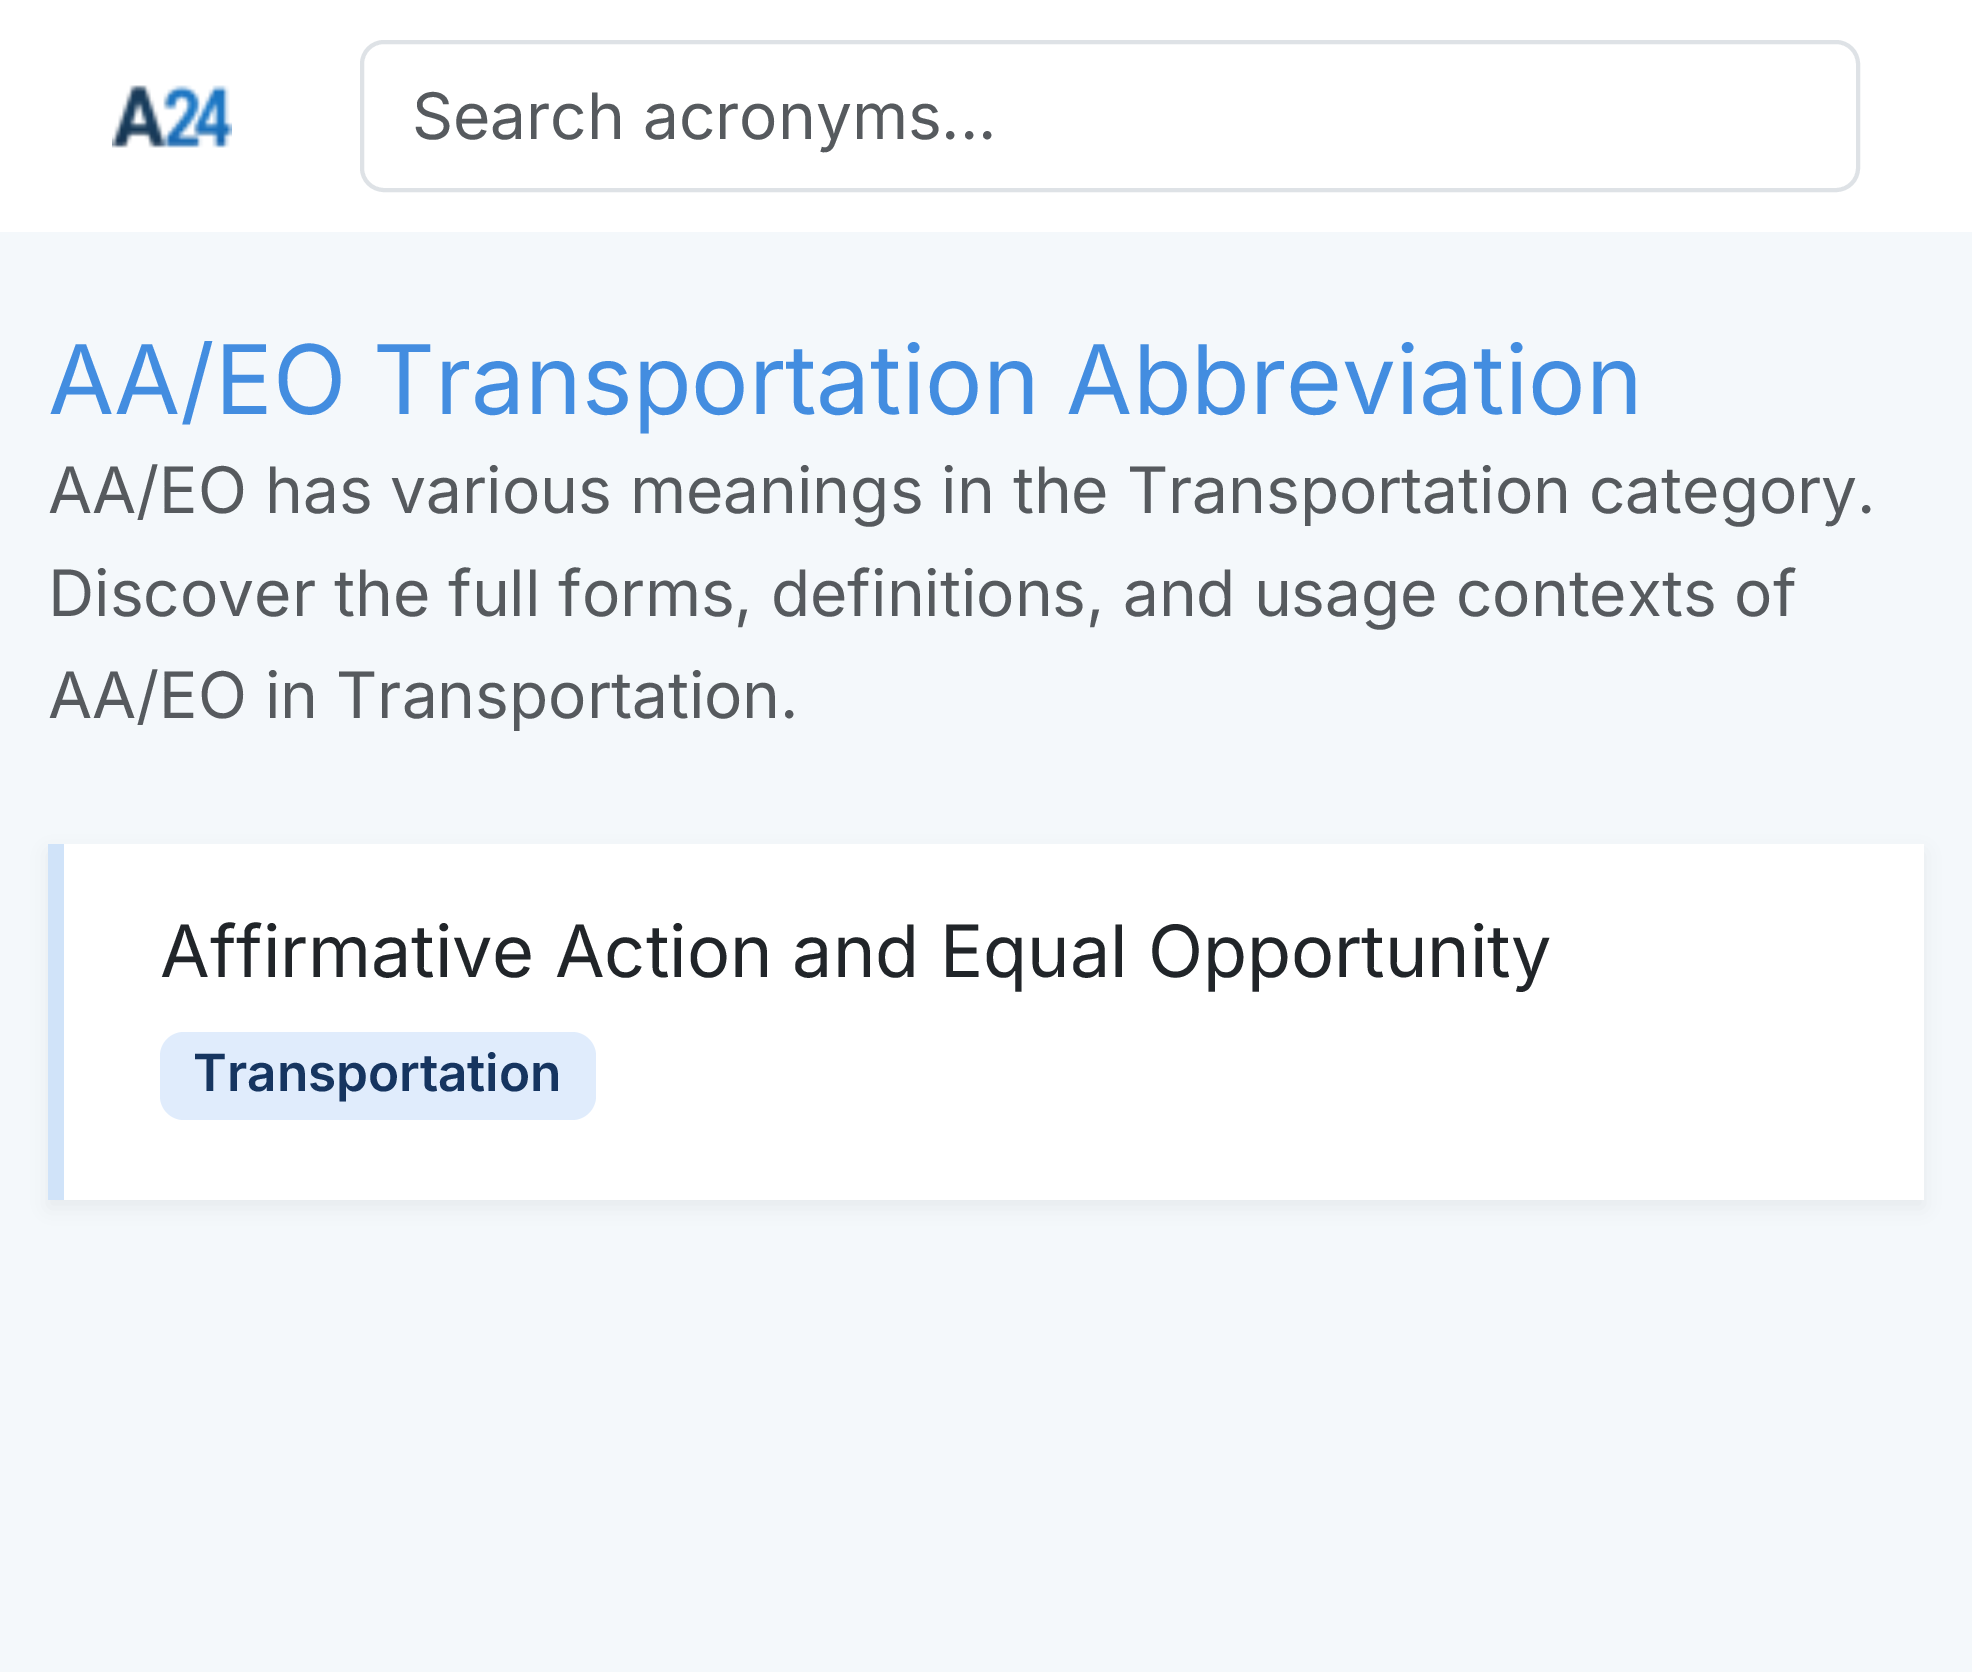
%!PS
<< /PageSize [1972 1672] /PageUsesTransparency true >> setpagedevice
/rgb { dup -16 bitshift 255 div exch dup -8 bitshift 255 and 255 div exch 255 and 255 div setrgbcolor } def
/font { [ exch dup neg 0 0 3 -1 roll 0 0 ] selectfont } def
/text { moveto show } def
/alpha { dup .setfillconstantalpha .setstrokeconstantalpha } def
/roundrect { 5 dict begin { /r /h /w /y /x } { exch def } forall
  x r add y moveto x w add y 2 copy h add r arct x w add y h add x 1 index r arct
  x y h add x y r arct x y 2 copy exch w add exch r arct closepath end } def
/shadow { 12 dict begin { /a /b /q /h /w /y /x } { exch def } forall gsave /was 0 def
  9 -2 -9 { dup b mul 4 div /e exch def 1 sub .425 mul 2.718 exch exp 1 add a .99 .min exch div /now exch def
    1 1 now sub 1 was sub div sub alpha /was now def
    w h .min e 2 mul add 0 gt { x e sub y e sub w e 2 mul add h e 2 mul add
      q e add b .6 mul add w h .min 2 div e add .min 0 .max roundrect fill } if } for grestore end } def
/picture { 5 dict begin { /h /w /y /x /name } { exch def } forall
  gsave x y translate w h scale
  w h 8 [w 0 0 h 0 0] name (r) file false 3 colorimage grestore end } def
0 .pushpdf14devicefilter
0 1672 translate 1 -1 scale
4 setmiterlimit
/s1 { /Inter-Regular 64 font 16#565A5E rgb } def
/s2 { /Inter-Regular 96 font 16#438DE0 rgb } def
/s3 { /Inter-Regular 72 font 16#212529 rgb } def
/s4 { /Inter-SemiBold 51.25 font 16#163560 rgb } def
16#F4F8FB rgb
0 0 1972 1672 rectfill
16#FFFFFF rgb
0 0 1972 232 rectfill
(pic1.raw) 112 85 120 63 picture
16#DEE2E6 rgb
4 setlinewidth
362 42 1496 148 22 roundrect stroke
s1
(Search acronyms...) 412 139 text
s2
(AA/EO Transportation Abbreviation) 48 414 text
s1
(AA/EO has various meanings in the Transportation category.) 48 513 text
(Discover the full forms, definitions, and usage contexts of) 48 616 text
(AA/EO in Transportation.) 48 718 text
16#000000 rgb
48 852 1876 356 0 10 0.05 shadow
16#FFFFFF rgb
64 844 1860 356 rectfill
16#D0E3F9 rgb
48 844 16 356 rectfill
s3
(Affirmative Action and Equal Opportunity) 160 977 text
16#E0ECFC rgb
160 1032 436 88 24 roundrect fill
s4
(Transportation) 193 1091 text
.poppdf14devicefilter showpage
